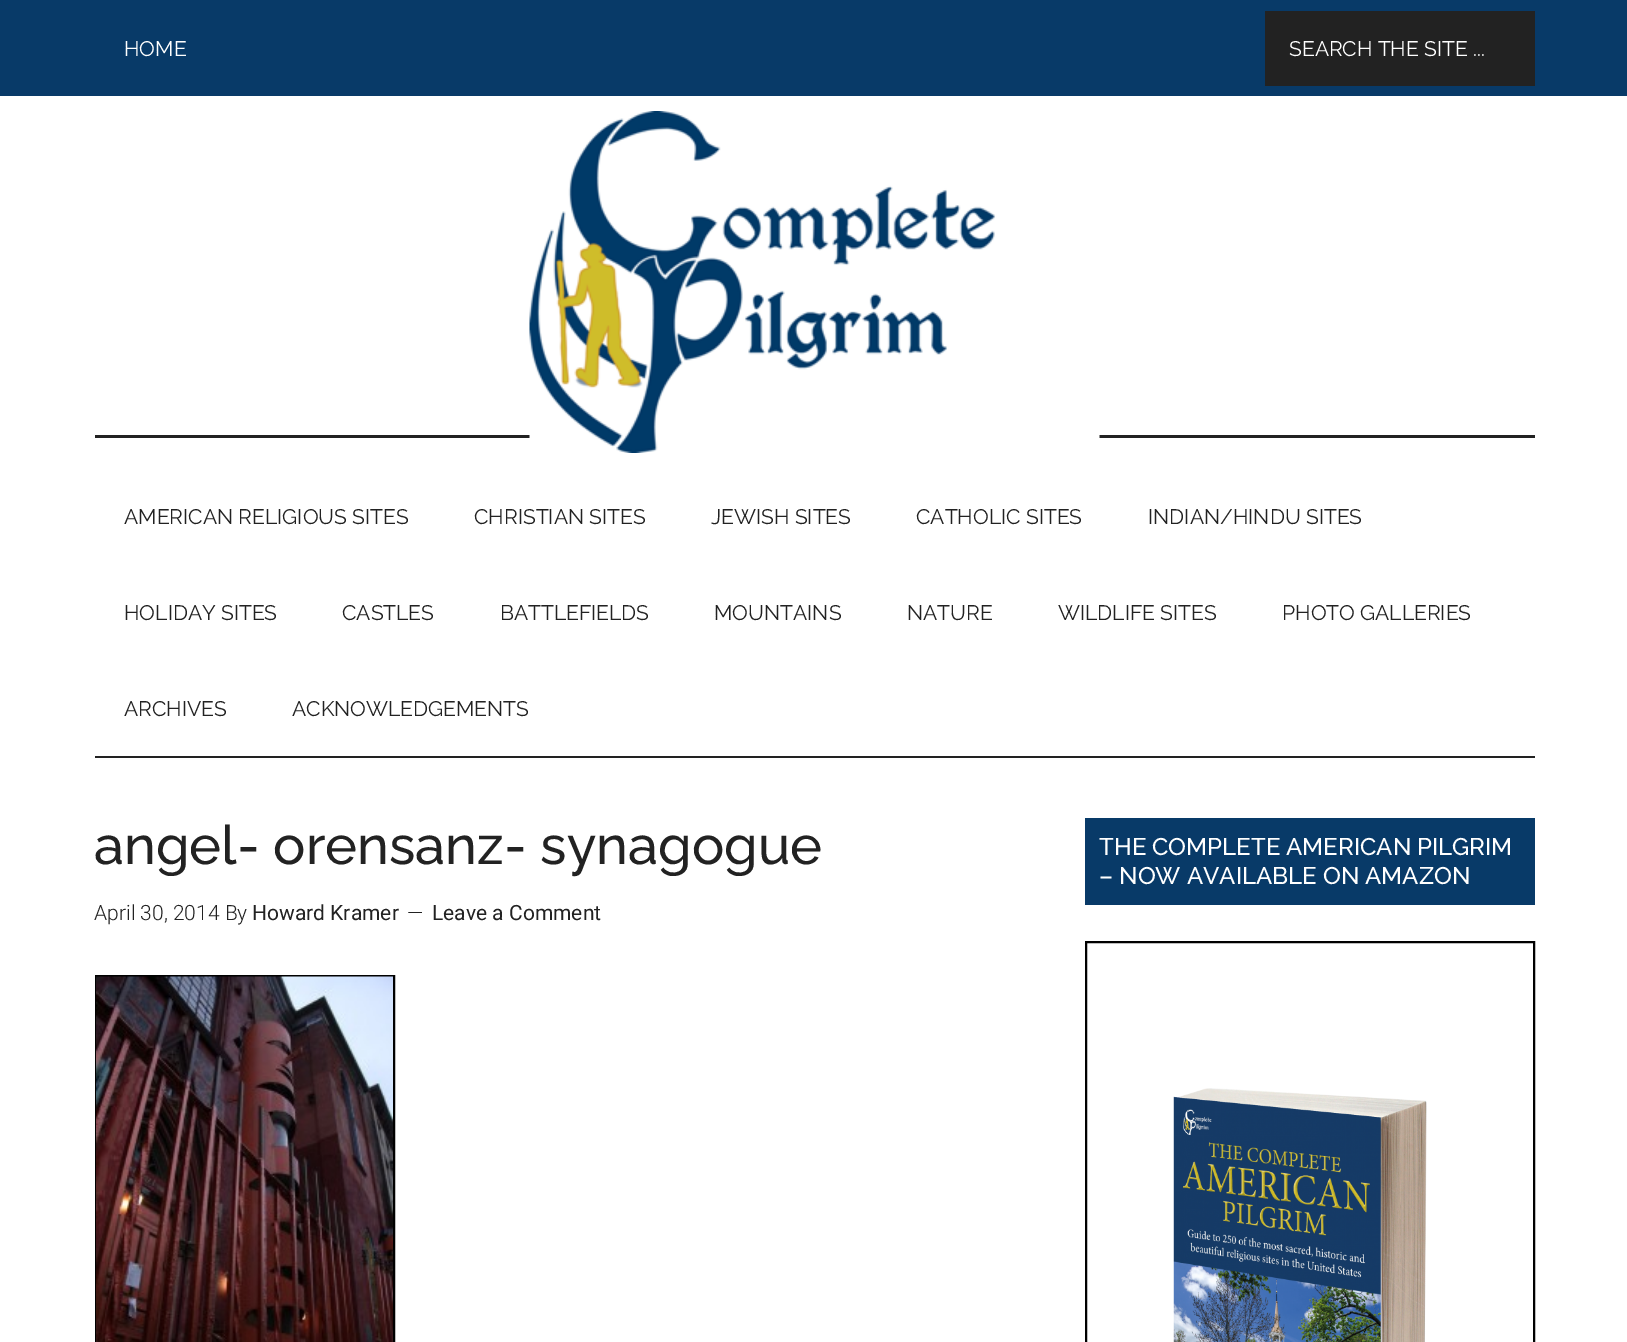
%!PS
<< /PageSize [1627 1342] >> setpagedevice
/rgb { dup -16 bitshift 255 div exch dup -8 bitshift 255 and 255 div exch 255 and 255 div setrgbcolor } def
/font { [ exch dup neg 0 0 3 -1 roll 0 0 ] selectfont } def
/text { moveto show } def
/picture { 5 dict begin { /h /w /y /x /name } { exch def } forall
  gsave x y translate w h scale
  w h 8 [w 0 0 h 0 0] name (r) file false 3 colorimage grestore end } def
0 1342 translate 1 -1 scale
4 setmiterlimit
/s1 { /Raleway-Regular 21 font 16#FFFFFF rgb } def
/s2 { /Raleway-Regular 21 font 16#222222 rgb } def
/s3 { /Raleway-Medium 54 font 16#222222 rgb } def
/s4 { /Roboto-Light 21 font 16#222222 rgb } def
/s5 { /Roboto-Regular 21 font 16#222222 rgb } def
/s6 { /Raleway-Medium 24 font 16#FFFFFF rgb } def
16#FFFFFF rgb
0 0 1627 1342 rectfill
16#083A68 rgb
0 0 1627 96 rectfill
s1
(HOME) 124 56 text
16#222222 rgb
1265 11 270 75 rectfill
s1
(SEARCH THE SITE ...) 1289 56 text
16#222222 rgb
95 435 1440 3 rectfill
(pic1.raw) 529 111 571 342 picture
95 756 1440 2 rectfill
(AMERICAN RELIGIOUS SITES) 124 524 text
(CHRISTIAN SITES) 474 524 text
(JEWISH SITES) 711 524 text
(CATHOLIC SITES) 916 524 text
(INDIAN/HINDU SITES) 1148 524 text
(HOLIDAY SITES) 124 620 text
(CASTLES) 342 620 text
(BATTLEFIELDS) 500 620 text
(MOUNTAINS) 714 620 text
(NATURE) 907 620 text
(WILDLIFE SITES) 1058 620 text
(PHOTO GALLERIES) 1282 620 text
(ARCHIVES) 124 716 text
(ACKNOWLEDGEMENTS) 292 716 text
s3
(angel- orensanz- synagogue) 94 864 text
s4
(April 30, 2014 By) 94 920 text
s5
(Howard Kramer) 252 920 text
s4
(—) 407 920 text
s5
(Leave a Comment) 432 920 text
16#000000 rgb
2 setlinewidth
96 976 298 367 rectstroke
(pic2.raw) 96 976 297 366 picture
16#083A68 rgb
1085 818 450 87 rectfill
s6
(THE COMPLETE AMERICAN PILGRIM) 1099 855 text
(– NOW AVAILABLE ON AMAZON) 1099 884 text
16#000000 rgb
1086 942 448 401 rectstroke
(pic3.raw) 1173 1088 254 254 picture
showpage
